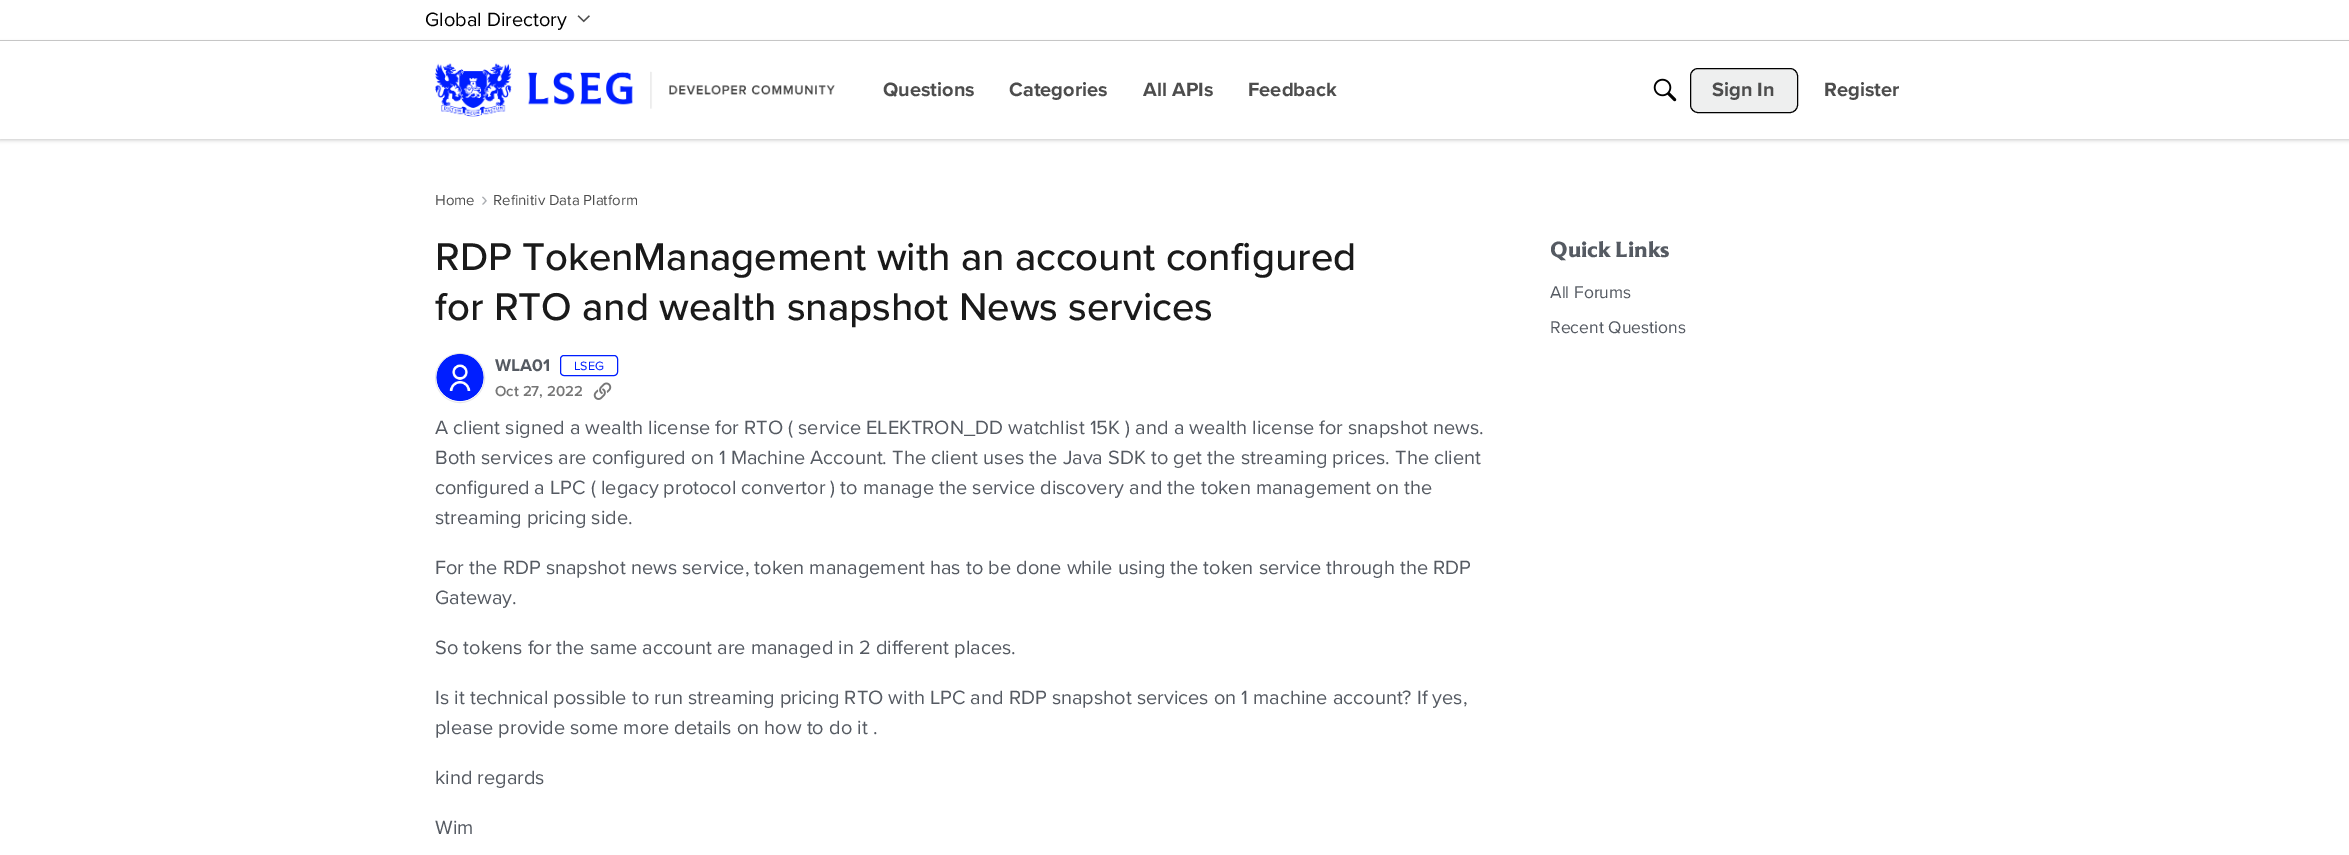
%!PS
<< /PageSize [2349 855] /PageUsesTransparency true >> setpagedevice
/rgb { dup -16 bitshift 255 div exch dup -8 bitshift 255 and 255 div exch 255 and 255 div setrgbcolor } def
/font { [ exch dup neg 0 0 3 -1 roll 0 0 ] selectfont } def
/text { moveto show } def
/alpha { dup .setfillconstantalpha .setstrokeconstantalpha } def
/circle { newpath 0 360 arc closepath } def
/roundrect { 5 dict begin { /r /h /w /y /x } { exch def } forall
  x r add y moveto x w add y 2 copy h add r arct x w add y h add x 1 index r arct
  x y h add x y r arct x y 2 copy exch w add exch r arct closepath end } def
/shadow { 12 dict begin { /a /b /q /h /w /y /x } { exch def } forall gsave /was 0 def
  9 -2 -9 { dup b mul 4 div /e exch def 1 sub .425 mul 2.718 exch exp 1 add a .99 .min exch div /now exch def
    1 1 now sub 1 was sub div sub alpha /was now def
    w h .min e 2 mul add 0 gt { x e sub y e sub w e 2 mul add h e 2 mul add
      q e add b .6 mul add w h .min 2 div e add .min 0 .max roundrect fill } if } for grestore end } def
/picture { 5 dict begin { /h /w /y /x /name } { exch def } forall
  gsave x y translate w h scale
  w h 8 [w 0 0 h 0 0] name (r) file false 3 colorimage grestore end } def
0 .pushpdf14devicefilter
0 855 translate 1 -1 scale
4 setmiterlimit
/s1 { /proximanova-Regular 20 font 16#000000 rgb } def
/s2 { /proximanova-Bold 20 font 16#4D4D4D rgb } def
/s3 { /proximanova-Regular 15 font 16#4D4D4D rgb } def
/s4 { /LiberationSans-Regular 20 font 16#AAADB1 rgb } def
/s5 { /ProximaNova-Medium 40 font 16#1A1A1A rgb } def
/s6 { /proximanova-Bold 17.5 font 16#555A62 rgb } def
/s7 { /proximanova-Regular 12.5 font 16#001EFF rgb } def
/s8 { /ProximaNova-SemiBold 15 font 16#767676 rgb } def
/s9 { /proximanova-Regular 20 font 16#555A62 rgb } def
/s10 { /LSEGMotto-Bold 22.5 font 16#555A62 rgb } def
/s11 { /proximanova-Regular 17.5 font 16#555A62 rgb } def
16#FFFFFF rgb
0 0 2349 855 rectfill
16#CCCCCC rgb
0 40 2349 1 rectfill
s1
(Global Directory) 425 26 text
(pic1.raw) 577 15 13 8 picture
0 43 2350 97 0 2 0.22 shadow
16#FFFFFF rgb
0 41 2349 98 rectfill
(pic2.raw) 435 63 400 54 picture
s2
(Questions) 883 96 text
(Categories) 1009 96 text
(All APIs) 1143 96 text
(Feedback) 1248 96 text
(pic3.raw) 1653 78 24 24 picture
16#EEEFEF rgb
1690.5 68.5 107 44 7.5 roundrect gsave fill grestore
16#000000 rgb
stroke
s2
(Sign In) 1712 96 text
(Register) 1824 96 text
s3
(Home) 435 205 text
s4
(›) 481 206 text
s3
(Refinitiv Data Platform) 493 205 text
s5
(RDP TokenManagement with an account configured) 435 270 text
(for RTO and wealth snapshot News services) 435 320 text
16#E6E6E8 rgb
460 378 24.5 circle stroke
(pic4.raw) 436 353 48 49 picture
s6
(WLA01) 495 371 text
16#001EFF rgb
560.5 355.5 57 20 3.5 roundrect stroke
s7
(LSEG) 574 370 text
s8
(Oct 27, 2022) 495 396 text
(pic5.raw) 593 382 19 18 picture
s9
(A client signed a wealth license for RTO \( service ELEKTRON_DD watchlist 15K \) and a wealth license for snapshot news.) 435 434 text
(Both services are configured on 1 Machine Account. The client uses the Java SDK to get the streaming prices. The client) 435 464 text
(configured a LPC \( legacy protocol convertor \) to manage the service discovery and the token management on the) 435 494 text
(streaming pricing side.) 435 524 text
(For the RDP snapshot news service, token management has to be done while using the token service through the RDP) 435 574 text
(Gateway.) 435 604 text
(So tokens for the same account are managed in 2 different places.) 435 654 text
(Is it technical possible to run streaming pricing RTO with LPC and RDP snapshot services on 1 machine account? If yes,) 435 704 text
(please provide some more details on how to do it .) 435 734 text
(kind regards) 435 784 text
(Wim) 435 834 text
s10
(Quick Links) 1550 257 text
s11
(All Forums) 1550 298 text
(Recent Questions) 1550 333 text
.poppdf14devicefilter showpage
